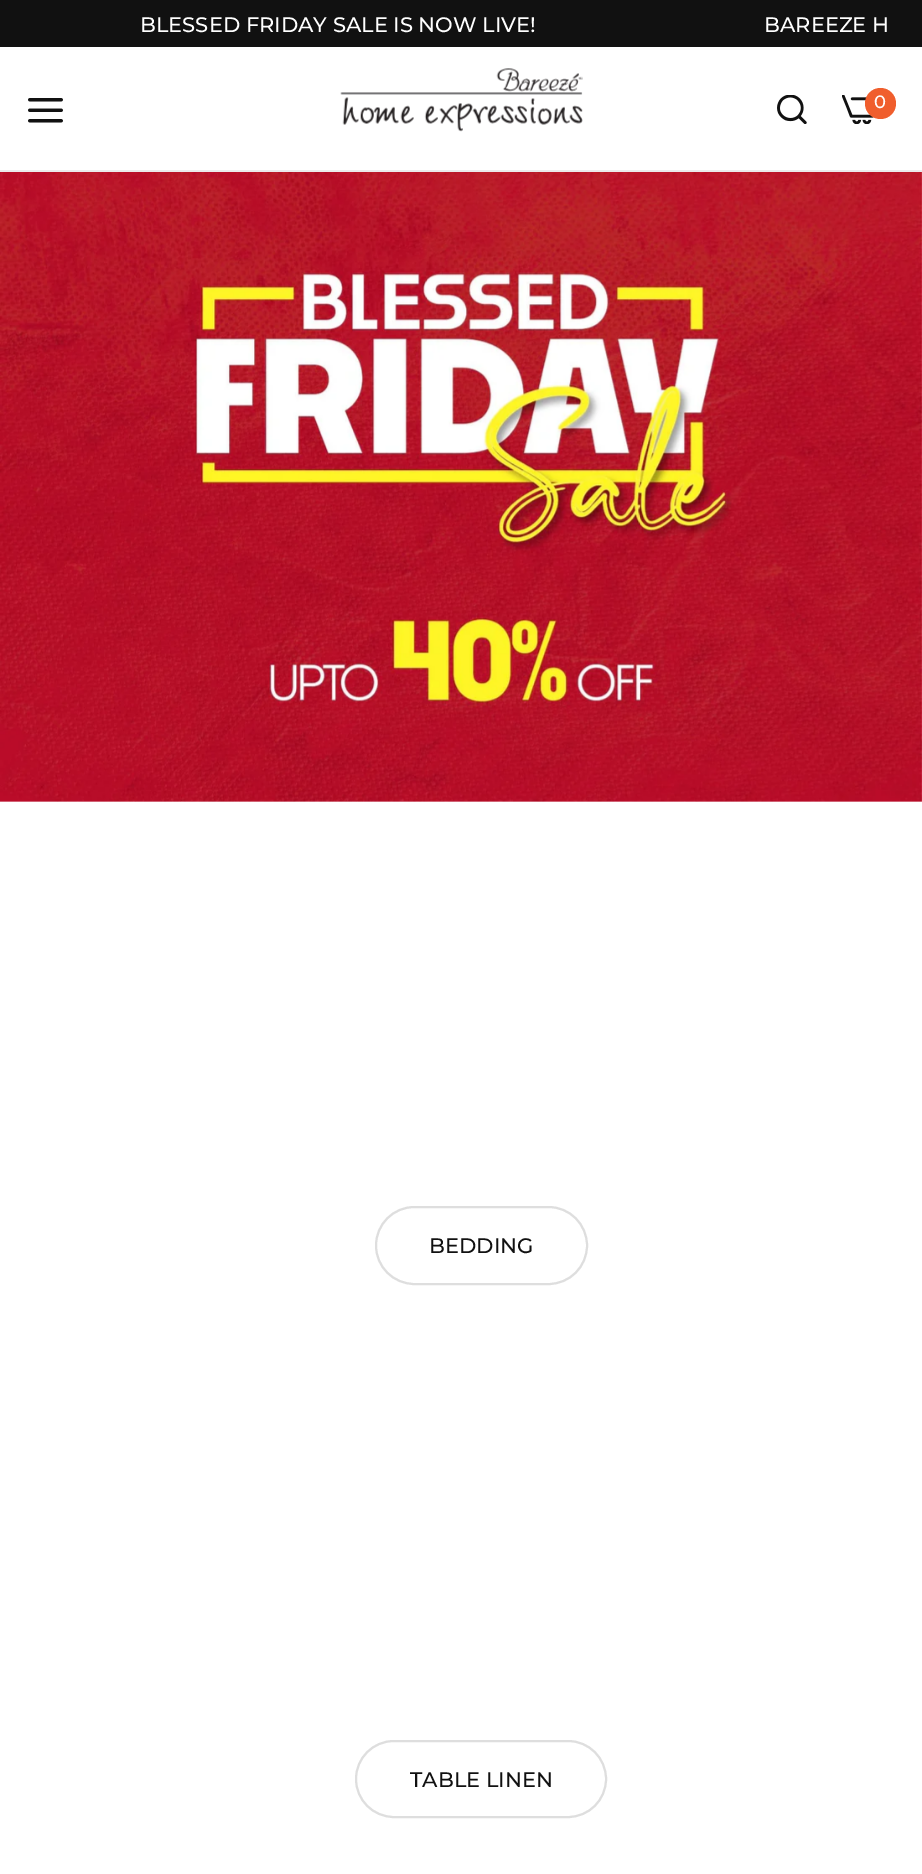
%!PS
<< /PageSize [922 1874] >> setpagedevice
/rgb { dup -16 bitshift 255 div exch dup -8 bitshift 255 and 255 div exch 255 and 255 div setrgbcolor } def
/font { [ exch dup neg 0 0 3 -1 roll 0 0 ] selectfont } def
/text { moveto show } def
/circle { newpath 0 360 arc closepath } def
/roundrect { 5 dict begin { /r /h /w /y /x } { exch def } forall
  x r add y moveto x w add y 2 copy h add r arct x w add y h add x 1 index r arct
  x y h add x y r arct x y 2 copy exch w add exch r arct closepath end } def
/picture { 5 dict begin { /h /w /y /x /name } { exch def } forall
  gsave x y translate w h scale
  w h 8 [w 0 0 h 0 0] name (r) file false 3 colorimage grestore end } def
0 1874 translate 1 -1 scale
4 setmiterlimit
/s1 { /Montserrat-Medium 21 font 16#FFFFFF rgb } def
/s2 { /Montserrat-Medium 18 font 16#FFFFFF rgb } def
/s3 { /Montserrat-Medium 21 font 16#111111 rgb } def
16#FFFFFF rgb
0 0 922 1874 rectfill
16#111111 rgb
0 0 922 47 rectfill
s1
(BLESSED FRIDAY SALE IS NOW LIVE!) 140 32 text
(BAREEZE H) 764 32 text
16#EBEBEB rgb
0 170 922 2 rectfill
(pic1.raw) 28 98 35 25 picture
(pic2.raw) 340 68 243 64 picture
(pic3.raw) 777 95 30 29 picture
(pic4.raw) 842 95 32 29 picture
16#F05E2D rgb
880.5 103.5 15.5 circle fill
s2
(0) 874 108 text
(pic5.raw) 0 172 922 630 picture
16#DEDEDE rgb
2 setlinewidth
376 1207 211 77 38.5 roundrect stroke
s3
(BEDDING) 429 1253 text
16#DEDEDE rgb
356 1741 250 76 38 roundrect stroke
s3
(TABLE LINEN) 410 1787 text
showpage
